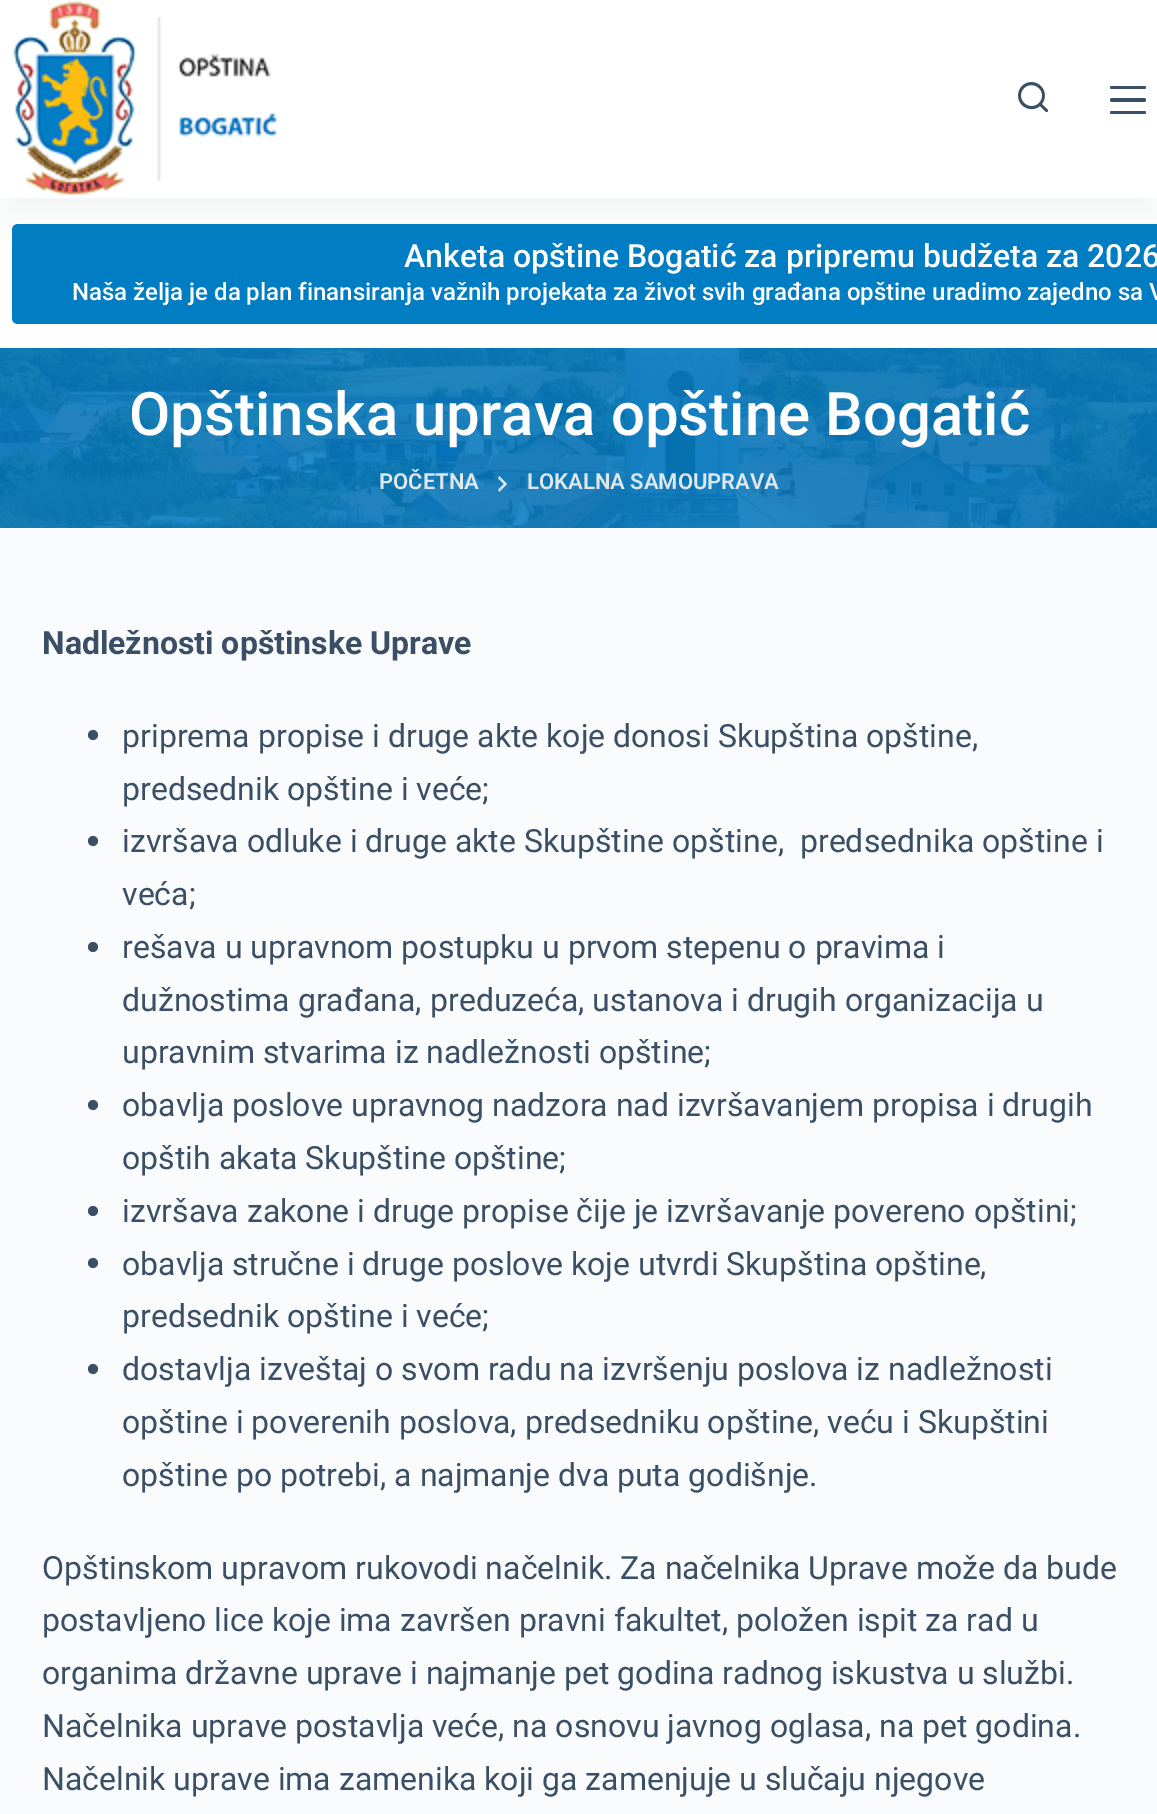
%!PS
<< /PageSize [1157 1814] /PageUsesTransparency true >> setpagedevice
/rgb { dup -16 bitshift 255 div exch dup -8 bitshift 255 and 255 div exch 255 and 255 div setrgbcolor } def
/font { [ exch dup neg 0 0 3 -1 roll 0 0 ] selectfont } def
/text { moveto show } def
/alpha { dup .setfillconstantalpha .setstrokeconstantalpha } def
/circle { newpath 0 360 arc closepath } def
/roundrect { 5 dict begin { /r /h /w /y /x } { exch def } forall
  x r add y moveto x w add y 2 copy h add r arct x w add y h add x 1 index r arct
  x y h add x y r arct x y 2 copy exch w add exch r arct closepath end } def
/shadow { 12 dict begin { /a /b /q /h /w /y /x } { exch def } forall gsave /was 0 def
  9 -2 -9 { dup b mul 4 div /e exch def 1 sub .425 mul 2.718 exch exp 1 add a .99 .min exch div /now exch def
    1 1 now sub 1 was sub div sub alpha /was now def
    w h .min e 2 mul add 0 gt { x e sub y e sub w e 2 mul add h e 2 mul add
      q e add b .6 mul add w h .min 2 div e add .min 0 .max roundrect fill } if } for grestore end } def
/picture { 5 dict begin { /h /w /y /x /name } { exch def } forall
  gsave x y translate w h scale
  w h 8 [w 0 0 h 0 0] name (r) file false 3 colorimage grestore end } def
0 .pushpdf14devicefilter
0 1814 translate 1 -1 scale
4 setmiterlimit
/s1 { /Roboto-Medium 32 font 16#FFFFFF rgb } def
/s2 { /Roboto-Medium 24 font 16#FFFFFF rgb } def
/s3 { /Roboto-Medium 60 font 16#FFFFFF rgb } def
/s4 { /Roboto-SemiBold 22 font 16#E1E8ED rgb } def
/s5 { /Roboto-Bold 32 font 16#3A4F66 rgb } def
/s6 { /Roboto-Regular 32 font 16#3A4F66 rgb } def
16#FAFBFC rgb
0 0 1157 1814 rectfill
16#FFFFFF rgb
0 198 1157 150 rectfill
16#017DC3 rgb
18 224 moveto 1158 224 lineto 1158 324 lineto 18 324 lineto 14.5 324 12 321.5 12 318 curveto 12 230 lineto 12 226.5 14.5 224 18 224 curveto closepath fill
16#2C3E50 rgb
0 20 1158 198 0 20 0.05 shadow
16#FFFFFF rgb
0 0 1157 198 rectfill
(pic1.raw) 13 1 264 196 picture
(pic2.raw) 1018 82 30 30 picture
16#3A4F66 rgb
1110 86 36 3 1.5 roundrect fill
1110 98 36 4 2 roundrect fill
1110 111 36 3 1.5 roundrect fill
s1
(Anketa opštine Bogatić za pripremu budžeta za 2026) 404 267 text
s2
(Naša želja je da plan finansiranja važnih projekata za život svih građana opštine uradimo zajedno sa V) 72 300 text
(pic3.raw) 0 348 1157 180 picture
s3
(Opštinska uprava opštine Bogatić) 129 435 text
s4
(POČETNA) 379 489 text
(pic4.raw) 498 476 10 16 picture
(LOKALNA SAMOUPRAVA) 527 489 text
s5
(Nadležnosti opštinske Uprave) 42 654 text
93 735 5 circle fill
s6
(priprema propise i druge akte koje donosi Skupština opštine,) 122 747 text
(predsednik opštine i veće;) 122 800 text
93 841 5 circle fill
(izvršava odluke i druge akte Skupštine opštine,  predsednika opštine i) 122 852 text
(veća;) 122 905 text
93 947 5 circle fill
(rešava u upravnom postupku u prvom stepenu o pravima i) 122 958 text
(dužnostima građana, preduzeća, ustanova i drugih organizacija u) 122 1011 text
(upravnim stvarima iz nadležnosti opštine;) 122 1063 text
93 1105 5 circle fill
(obavlja poslove upravnog nadzora nad izvršavanjem propisa i drugih) 122 1116 text
(opštih akata Skupštine opštine;) 122 1169 text
93 1211 5 circle fill
(izvršava zakone i druge propise čije je izvršavanje povereno opštini;) 122 1222 text
93 1263 5 circle fill
(obavlja stručne i druge poslove koje utvrdi Skupština opštine,) 122 1275 text
(predsednik opštine i veće;) 122 1327 text
93 1369 5 circle fill
(dostavlja izveštaj o svom radu na izvršenju poslova iz nadležnosti) 122 1380 text
(opštine i poverenih poslova, predsedniku opštine, veću i Skupštini) 122 1433 text
(opštine po potrebi, a najmanje dva puta godišnje.) 122 1486 text
(Opštinskom upravom rukovodi načelnik. Za načelnika Uprave može da bude) 42 1579 text
(postavljeno lice koje ima završen pravni fakultet, položen ispit za rad u) 42 1631 text
(organima državne uprave i najmanje pet godina radnog iskustva u službi.) 42 1684 text
(Načelnika uprave postavlja veće, na osnovu javnog oglasa, na pet godina.) 42 1737 text
(Načelnik uprave ima zamenika koji ga zamenjuje u slučaju njegove) 42 1790 text
.poppdf14devicefilter showpage
